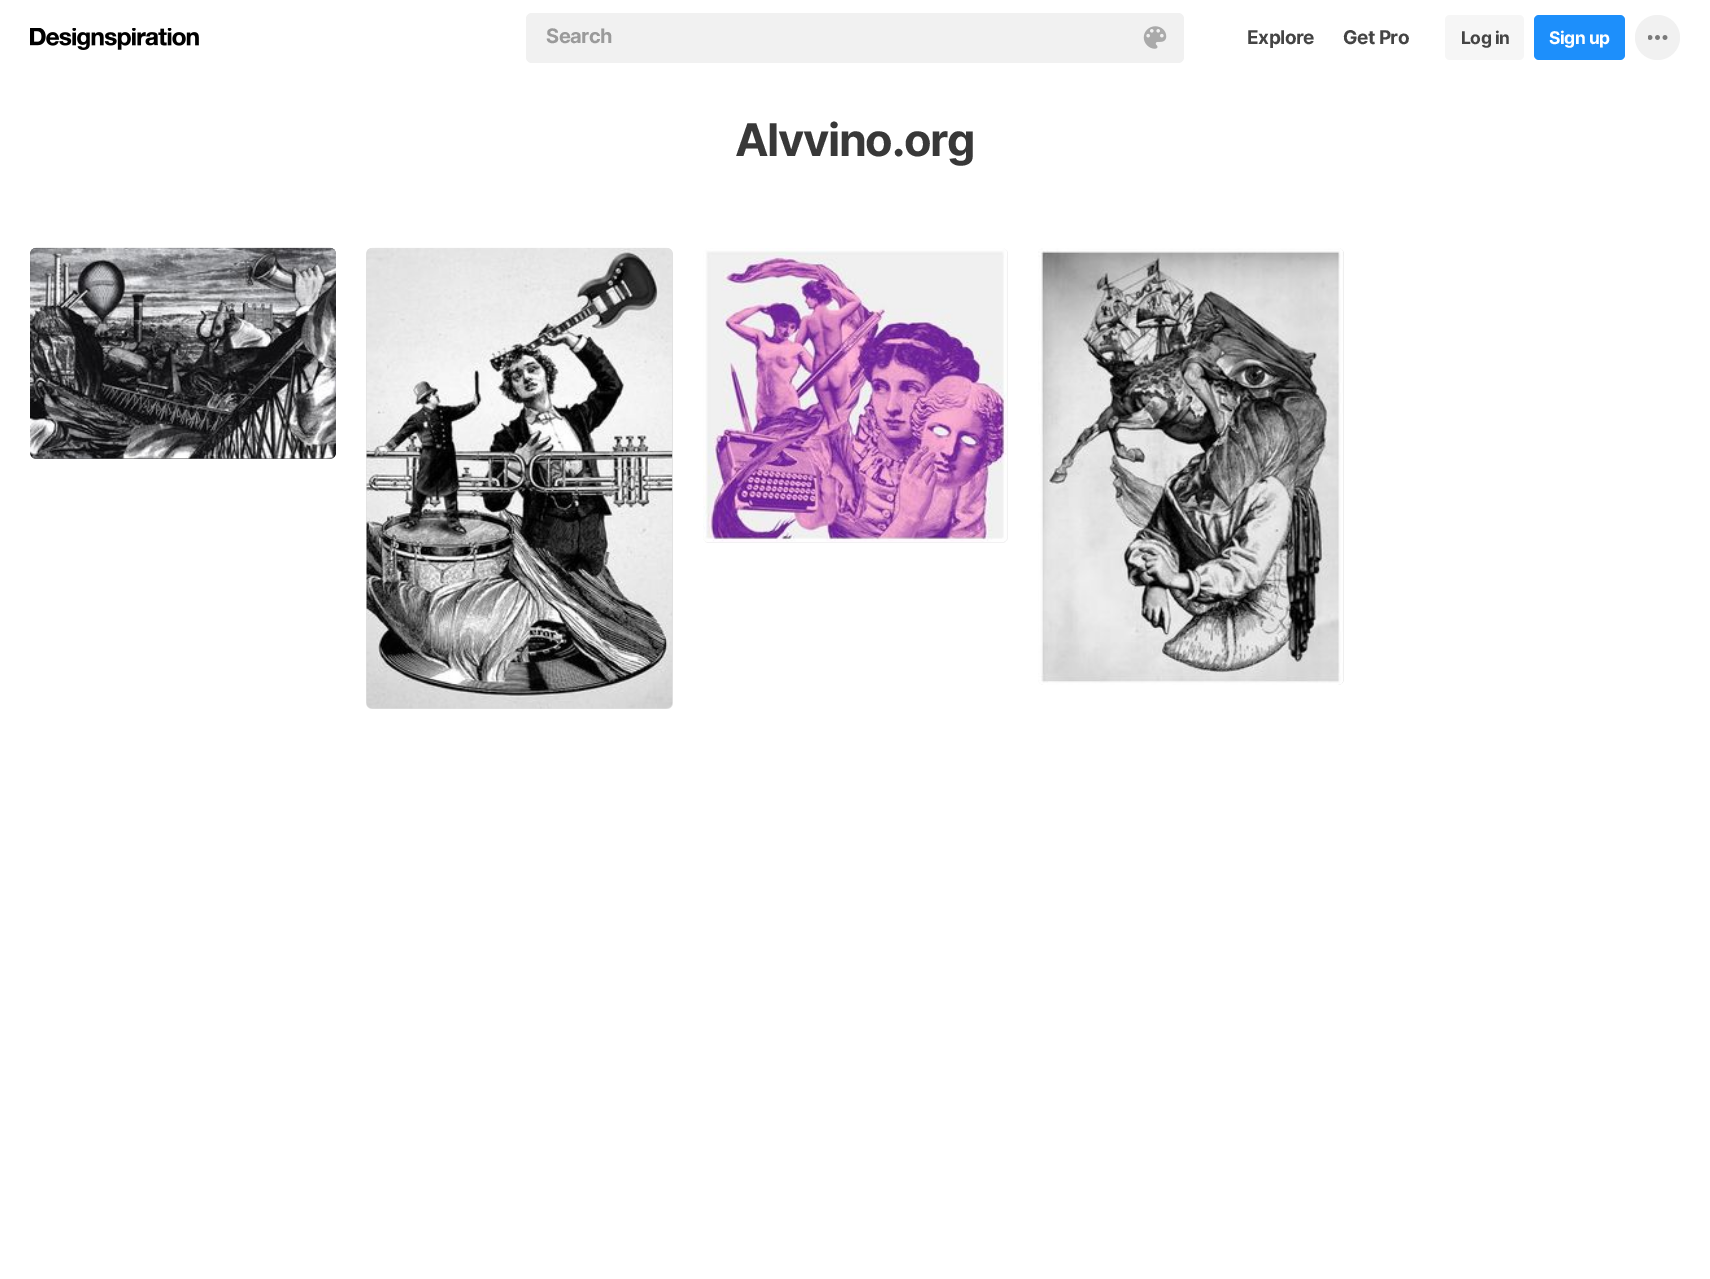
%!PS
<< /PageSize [1710 1279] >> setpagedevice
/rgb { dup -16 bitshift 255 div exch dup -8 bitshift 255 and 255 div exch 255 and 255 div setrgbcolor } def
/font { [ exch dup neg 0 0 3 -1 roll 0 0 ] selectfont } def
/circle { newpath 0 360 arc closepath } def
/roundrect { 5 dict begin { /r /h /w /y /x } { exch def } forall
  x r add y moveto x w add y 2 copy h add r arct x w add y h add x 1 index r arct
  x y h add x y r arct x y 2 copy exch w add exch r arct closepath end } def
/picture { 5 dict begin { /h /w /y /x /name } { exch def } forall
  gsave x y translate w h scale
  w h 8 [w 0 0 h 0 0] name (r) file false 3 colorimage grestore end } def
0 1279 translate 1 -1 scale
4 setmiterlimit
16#FFFFFF rgb
0 0 1710 1279 rectfill
(pic1.raw) 30 28 169 22 picture
16#F1F1F1 rgb
526 13 658 50 6 roundrect fill
/Inter-Bold 20 font
16#9A9A9A rgb
546 43 moveto -0.5 0 (Search) ashow
(pic2.raw) 1143 26 24 23 picture
/Inter-Bold 19 font
16#444444 rgb
1247 44 moveto -0.5 0 (Explore) ashow
1343 44 moveto -0.5 0 (Get Pro) ashow
16#F6F6F6 rgb
1445 15 79 45 5 roundrect fill
/Inter-Bold 17.5 font
16#444444 rgb
1461 44 moveto -0.5 0 (Log in) ashow
16#1D8FFB rgb
1534 15 91 45 5 roundrect fill
16#FFFFFF rgb
1549 44 moveto -0.5 0 (Sign up) ashow
16#F1F1F1 rgb
1657.5 37.5 22.5 circle fill
(pic3.raw) 1648 35 20 5 picture
/Inter-Bold 45 font
16#383838 rgb
735 156 moveto -1.4 0 (Alvvino.org) ashow
16#5E5E60 rgb
30 248 306 211 6 roundrect fill
(pic4.raw) 30 247 306 212 picture
16#E0E0E0 rgb
366 248 307 461 6 roundrect fill
(pic5.raw) 366 247 307 462 picture
16#F2F1F2 rgb
703 248 305 295 6 roundrect fill
(pic6.raw) 703 248 304 294 picture
16#E4E4E4 rgb
1038 248 306 437 6 roundrect fill
(pic7.raw) 1038 248 306 437 picture
showpage
